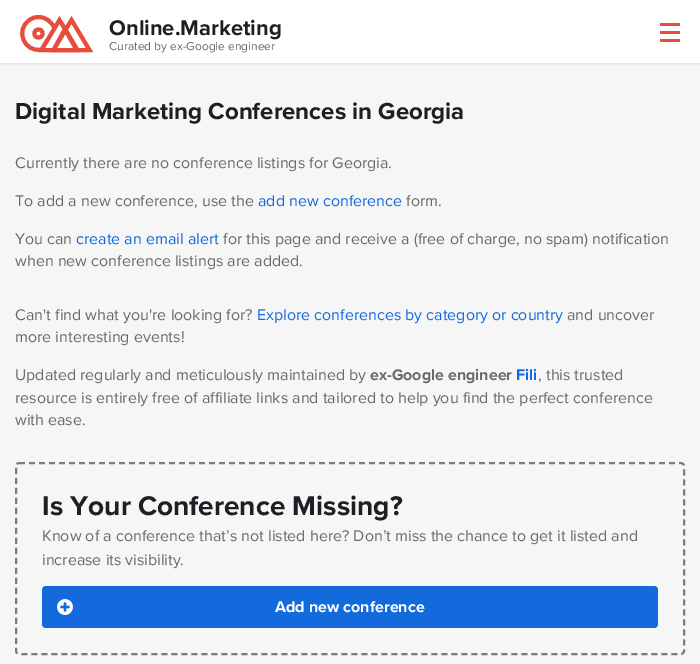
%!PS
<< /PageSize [700 664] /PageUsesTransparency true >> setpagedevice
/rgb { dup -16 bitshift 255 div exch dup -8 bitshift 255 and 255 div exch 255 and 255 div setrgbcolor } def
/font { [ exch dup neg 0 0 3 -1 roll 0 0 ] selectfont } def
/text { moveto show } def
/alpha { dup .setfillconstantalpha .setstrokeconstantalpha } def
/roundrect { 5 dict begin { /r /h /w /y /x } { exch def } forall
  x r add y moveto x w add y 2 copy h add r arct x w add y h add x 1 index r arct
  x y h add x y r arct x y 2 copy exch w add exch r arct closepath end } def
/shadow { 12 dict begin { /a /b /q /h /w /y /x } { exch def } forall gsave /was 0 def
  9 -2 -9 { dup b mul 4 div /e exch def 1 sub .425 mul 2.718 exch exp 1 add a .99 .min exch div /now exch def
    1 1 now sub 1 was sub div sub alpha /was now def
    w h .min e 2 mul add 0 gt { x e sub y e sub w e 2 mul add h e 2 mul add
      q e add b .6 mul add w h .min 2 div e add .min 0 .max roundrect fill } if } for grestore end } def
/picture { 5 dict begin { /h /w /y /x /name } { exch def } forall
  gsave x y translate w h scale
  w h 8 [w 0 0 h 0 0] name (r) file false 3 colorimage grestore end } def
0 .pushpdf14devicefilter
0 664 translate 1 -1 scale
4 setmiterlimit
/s1 { /ProximaNova-Bold 22 font 16#1D1F25 rgb } def
/s2 { /ProximaNova-Regular 12 font 16#6A6A6A rgb } def
/s3 { /ProximaNova-Bold 24 font 16#1D1F25 rgb } def
/s4 { /ProximaNova-Regular 16 font 16#6A6A6A rgb } def
/s5 { /ProximaNova-Regular 16 font 16#136ADD rgb } def
/s6 { /ProximaNova-Bold 16 font 16#6A6A6A rgb } def
/s7 { /ProximaNova-Bold 16 font 16#136ADD rgb } def
/s8 { /ProximaNova-Bold 28 font 16#1D1F25 rgb } def
/s9 { /ProximaNova-Bold 16 font 16#FFFFFF rgb } def
16#F6F6F6 rgb
0 0 700 664 rectfill
16#000000 rgb
0 1 700 64 0 1 0.06 shadow
16#FFFFFF rgb
0 0 700 63 rectfill
16#E6E6E6 rgb
0 63 700 1 rectfill
16#E74C3C rgb
4 setlinewidth
38.5 17 moveto 46 17 52 22 54.5 28.5 curveto 41.5 49.5 lineto 24.5 53 14.5 30 29.5 20 curveto 32 18 35 17 38.5 17 curveto closepath 38.5 29.5 moveto 33 29.5 33 37.5 38.5 37.5 curveto 44 37.5 44 29.5 38.5 29.5 curveto closepath 59.5 20 moveto 41.5 50 lineto 77.5 50 lineto closepath stroke
71.5 20 moveto 53.5 50 lineto 89.5 50 lineto closepath 65 29 moveto 53.5 50 lineto 76.5 50 lineto closepath stroke
s1
(Online.Marketing) 109 35 text
s2
(Curated by ex-Google engineer) 109 50 text
16#E74C3C rgb
660 23 20 3 rectfill
660 31 20 3 rectfill
660 39 20 3 rectfill
s3
(Digital Marketing Conferences in Georgia) 15 119 text
s4
(Currently there are no conference listings for Georgia.) 15 168 text
(To add a new conference, use the) 15 206 text
s5
(add new conference) 258 206 text
s4
(form.) 406 206 text
(You can) 15 244 text
s5
(create an email alert) 76 244 text
s4
(for this page and receive a \(free of charge, no spam\) notification) 223 244 text
(when new conference listings are added.) 15 266 text
(Can't find what you're looking for?) 15 320 text
s5
(Explore conferences by category or country) 257 320 text
s4
(and uncover) 567 320 text
(more interesting events!) 15 342 text
(Updated regularly and meticulously maintained by) 15 380 text
s6
(ex-Google engineer) 370 380 text
s7
(Fili) 516 380 text
s4
(, this trusted) 538 380 text
(resource is entirely free of affiliate links and tailored to help you find the perfect conference) 15 403 text
(with ease.) 15 425 text
16#7C7C7C rgb
2 setlinewidth
[6 4] 0 setdash
19 463 moveto 681 463 lineto 682.5 463 684 464.5 684 466 curveto 684 651 lineto 684 652.5 682.5 654 681 654 curveto 19 654 lineto 17.5 654 16 652.5 16 651 curveto 16 466 lineto 16 464.5 17.5 463 19 463 curveto closepath stroke
s8
(Is Your Conference Missing?) 42 515 text
s4
(Know of a conference that’s not listed here? Don’t miss the chance to get it listed and) 42 541 text
(increase its visibility.) 42 565 text
16#136ADD rgb
42 586 616 42 4 roundrect fill
(pic1.raw) 57 599 16 16 picture
s9
(Add new conference) 275 612 text
.poppdf14devicefilter showpage
